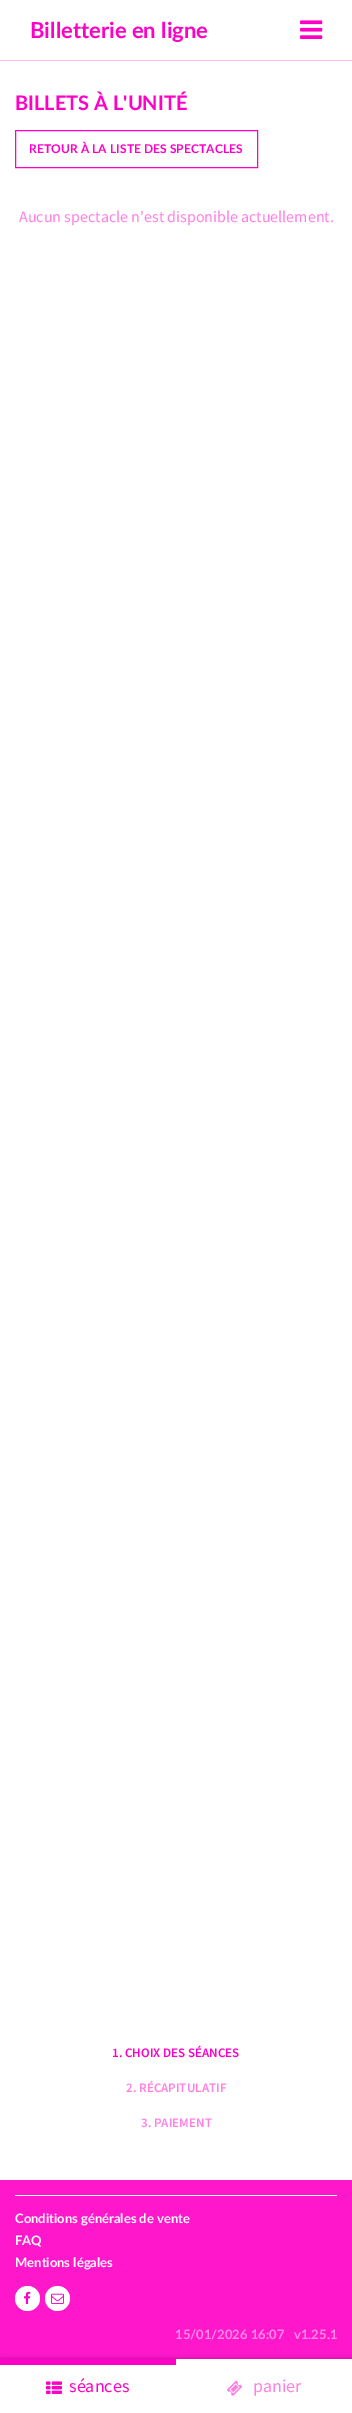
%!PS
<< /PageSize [352 2413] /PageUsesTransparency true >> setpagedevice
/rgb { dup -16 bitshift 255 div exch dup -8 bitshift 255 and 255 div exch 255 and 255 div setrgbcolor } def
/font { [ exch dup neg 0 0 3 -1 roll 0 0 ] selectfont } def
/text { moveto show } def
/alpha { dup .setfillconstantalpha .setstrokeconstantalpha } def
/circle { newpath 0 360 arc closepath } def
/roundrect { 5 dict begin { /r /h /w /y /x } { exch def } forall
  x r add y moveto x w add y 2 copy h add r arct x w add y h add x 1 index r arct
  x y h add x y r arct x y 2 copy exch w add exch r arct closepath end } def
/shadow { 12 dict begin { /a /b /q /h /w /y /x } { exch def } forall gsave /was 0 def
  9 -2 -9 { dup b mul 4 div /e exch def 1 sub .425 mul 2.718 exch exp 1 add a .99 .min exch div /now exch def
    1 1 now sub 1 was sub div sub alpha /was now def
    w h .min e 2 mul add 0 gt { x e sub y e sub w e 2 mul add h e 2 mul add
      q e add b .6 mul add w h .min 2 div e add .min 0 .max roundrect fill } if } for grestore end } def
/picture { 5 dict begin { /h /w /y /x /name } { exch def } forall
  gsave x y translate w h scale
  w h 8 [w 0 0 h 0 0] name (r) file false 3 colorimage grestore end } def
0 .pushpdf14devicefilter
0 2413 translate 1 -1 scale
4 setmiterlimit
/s1 { /Lato-Bold 22 font 16#FF00C7 rgb } def
/s2 { /Lato-Bold 20 font 16#FF00C7 rgb } def
/s3 { /SourceSansPro-Regular 16 font 16#FF80E3 rgb } def
/s4 { /SourceSansPro-Regular 18 font 16#FF00C7 rgb } def
/s5 { /SourceSansPro-Regular 18 font 16#FF80E3 rgb } def
/s6 { /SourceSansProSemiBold-SemiBold 13 font 16#FF00C7 rgb } def
/s7 { /SourceSansProSemiBold-SemiBold 13 font 16#FF80E3 rgb } def
/s8 { /Lato-Bold 13 font 16#FFFFFF rgb } def
/s9 { /Lato-Bold 13 font 16#FF8BE6 rgb } def
16#FFFFFF rgb
0 0 352 2413 rectfill
gsave
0 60 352 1 rectclip
16#FF00C7 rgb
0 0 352 60 0 0.5 1 shadow
grestore
s1
(Billetterie en ligne) 30 38 text
(pic1.raw) 300 20 23 19 picture
s2
(BILLETS À L'UNITÉ) 15 110 text
15.5 130.5 242 37 rectstroke
/Lato-Bold 12 font
29 153 moveto 0.1 0 (RETOUR À LA LISTE DES SPECTACLES) ashow
s3
(Aucun spectacle n'est disponible actuellement.) 19 222 text
16#FF17CC rgb
0 2180 352 179 rectfill
16#000000 rgb
0 2359 352 54 0 2.5 0.3 shadow
16#FFFFFF rgb
0 2359 352 54 rectfill
16#FF00C7 rgb
0 2359 176 6 rectfill
(pic2.raw) 46 2381 16 13 picture
s4
(séances) 69 2392 text
(pic3.raw) 227 2380 15 16 picture
s5
(panier) 253 2392 text
s6
(1. CHOIX DES SÉANCES) 112 2057 text
s7
(2. RÉCAPITULATIF) 126 2092 text
(3. PAIEMENT) 141 2127 text
16#FFFFFF rgb
15 2195 322 1 rectfill
s8
(Conditions générales de vente) 15 2223 text
(FAQ) 15 2245 text
(Mentions légales) 15 2267 text
27.5 2298.5 12.5 circle fill
(pic4.raw) 24 2291 7 13 picture
57.5 2298.5 12.5 circle fill
(pic5.raw) 51 2293 13 11 picture
s9
(15/01/2026 16:07) 175 2339 text
(v1.25.1) 294 2339 text
.poppdf14devicefilter showpage
